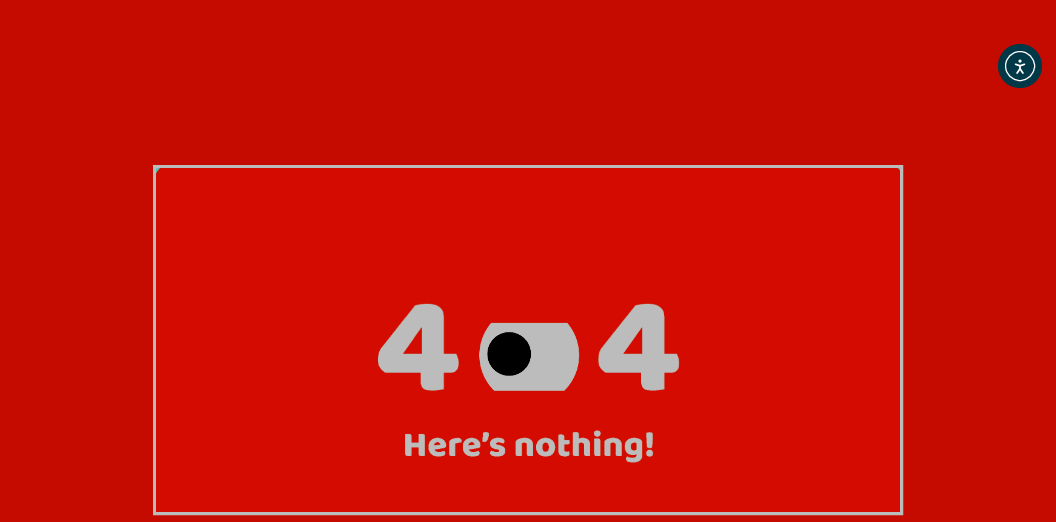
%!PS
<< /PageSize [1056 522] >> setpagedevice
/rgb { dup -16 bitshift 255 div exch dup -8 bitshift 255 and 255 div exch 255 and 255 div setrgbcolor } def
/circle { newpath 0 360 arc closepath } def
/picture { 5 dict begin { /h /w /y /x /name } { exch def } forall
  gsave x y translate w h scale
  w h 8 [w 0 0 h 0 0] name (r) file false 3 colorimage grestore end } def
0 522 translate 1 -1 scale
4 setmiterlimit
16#C50A00 rgb
0 0 1056 522 rectfill
16#003848 rgb
1020 66 22 circle fill
16#FFFFFF rgb
1020 66 14.5 circle stroke
(pic1.raw) 1014 59 12 15 picture
16#BCBCBC rgb
3 setlinewidth
154.5 166.5 747 347 rectstroke
(pic2.raw) 156 168 744 344 picture
showpage
